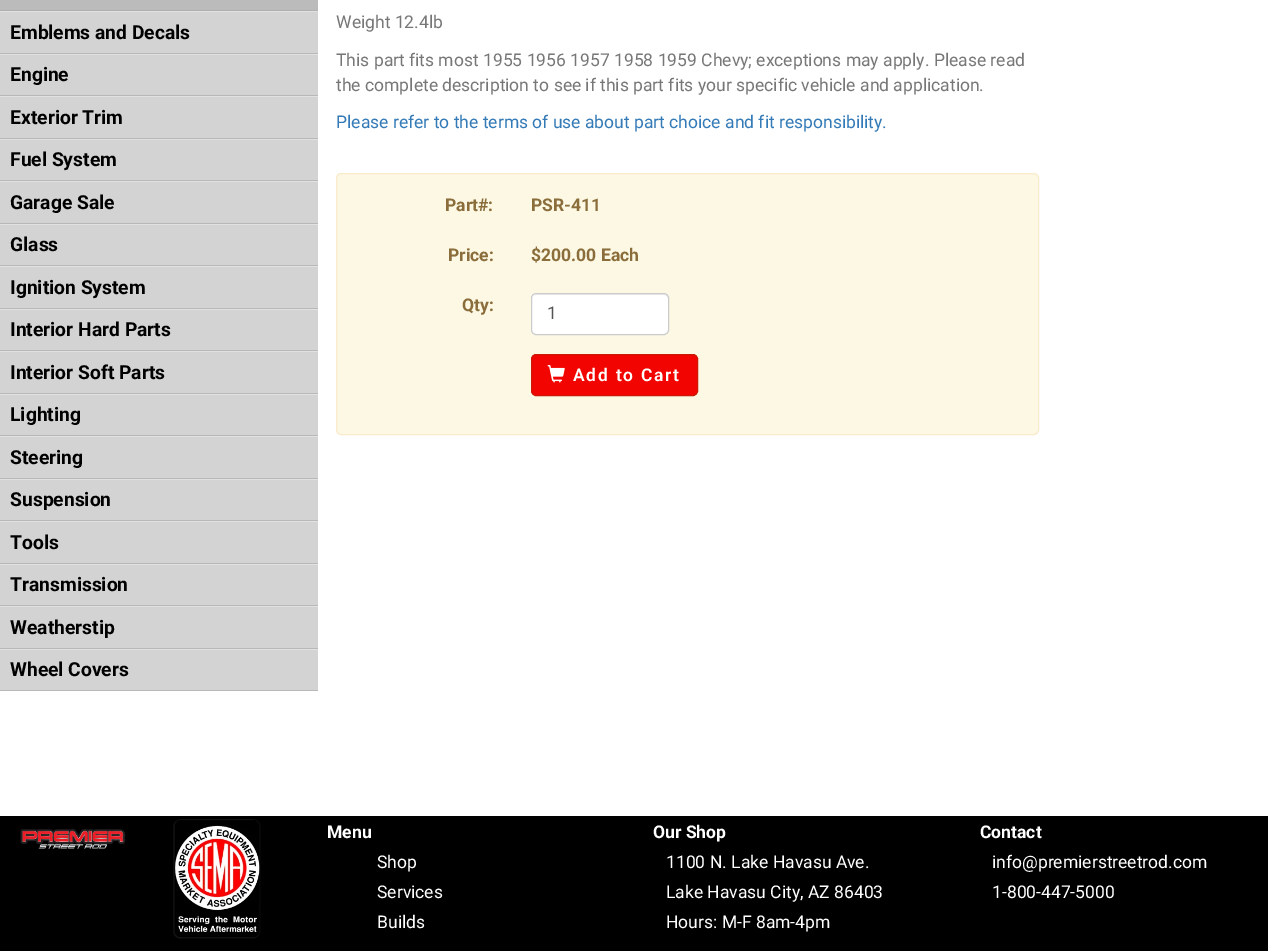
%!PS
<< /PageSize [1268 951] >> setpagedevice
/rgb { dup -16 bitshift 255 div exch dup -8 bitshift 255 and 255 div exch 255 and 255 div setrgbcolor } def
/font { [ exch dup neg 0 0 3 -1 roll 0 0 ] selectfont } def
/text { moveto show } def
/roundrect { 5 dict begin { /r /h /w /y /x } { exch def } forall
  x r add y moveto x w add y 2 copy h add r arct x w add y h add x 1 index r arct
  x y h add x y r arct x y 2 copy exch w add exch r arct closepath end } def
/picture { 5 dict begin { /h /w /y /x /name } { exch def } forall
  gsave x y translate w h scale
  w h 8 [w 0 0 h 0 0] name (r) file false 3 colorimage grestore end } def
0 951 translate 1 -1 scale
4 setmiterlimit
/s1 { /Roboto-Bold 19.25 font 16#000000 rgb } def
/s2 { /Roboto-Regular 17.5 font 16#777777 rgb } def
/s3 { /Roboto-Regular 17.5 font 16#337AB7 rgb } def
/s4 { /Roboto-Bold 17.5 font 16#8A6D3B rgb } def
/s5 { /Roboto-Regular 17.5 font 16#555555 rgb } def
/s6 { /Roboto-Bold 17.5 font 16#FFFFFF rgb } def
/s7 { /Roboto-Regular 17.5 font 16#FFFFFF rgb } def
16#FFFFFF rgb
0 0 1268 951 rectfill
16#BBBBBB rgb
0 0 318 10 rectfill
16#AFAFAF rgb
0 10 318 1 rectfill
16#D3D3D3 rgb
0 12 318 41 rectfill
16#E1E1E1 rgb
0 11 318 1 rectfill
16#B8B8B8 rgb
0 53 318 1 rectfill
s1
(Emblems and Decals) 10 39 text
16#D3D3D3 rgb
0 55 318 40 rectfill
16#E1E1E1 rgb
0 54 318 1 rectfill
16#B8B8B8 rgb
0 95 318 1 rectfill
s1
(Engine) 10 81 text
16#D3D3D3 rgb
0 97 318 41 rectfill
16#E1E1E1 rgb
0 96 318 1 rectfill
16#B8B8B8 rgb
0 138 318 1 rectfill
s1
(Exterior Trim) 10 124 text
16#D3D3D3 rgb
0 140 318 40 rectfill
16#E1E1E1 rgb
0 139 318 1 rectfill
16#B8B8B8 rgb
0 180 318 1 rectfill
s1
(Fuel System) 10 166 text
16#D3D3D3 rgb
0 182 318 41 rectfill
16#E1E1E1 rgb
0 181 318 1 rectfill
16#B8B8B8 rgb
0 223 318 1 rectfill
s1
(Garage Sale) 10 209 text
16#D3D3D3 rgb
0 225 318 40 rectfill
16#E1E1E1 rgb
0 224 318 1 rectfill
16#B8B8B8 rgb
0 265 318 1 rectfill
s1
(Glass) 10 251 text
16#D3D3D3 rgb
0 267 318 41 rectfill
16#E1E1E1 rgb
0 266 318 1 rectfill
16#B8B8B8 rgb
0 308 318 1 rectfill
s1
(Ignition System) 10 294 text
16#D3D3D3 rgb
0 310 318 40 rectfill
16#E1E1E1 rgb
0 309 318 1 rectfill
16#B8B8B8 rgb
0 350 318 1 rectfill
s1
(Interior Hard Parts) 10 336 text
16#D3D3D3 rgb
0 352 318 41 rectfill
16#E1E1E1 rgb
0 351 318 1 rectfill
16#B8B8B8 rgb
0 393 318 1 rectfill
s1
(Interior Soft Parts) 10 379 text
16#D3D3D3 rgb
0 395 318 40 rectfill
16#E1E1E1 rgb
0 394 318 1 rectfill
16#B8B8B8 rgb
0 435 318 1 rectfill
s1
(Lighting) 10 421 text
16#D3D3D3 rgb
0 437 318 41 rectfill
16#E1E1E1 rgb
0 436 318 1 rectfill
16#B8B8B8 rgb
0 478 318 1 rectfill
s1
(Steering) 10 464 text
16#D3D3D3 rgb
0 480 318 40 rectfill
16#E1E1E1 rgb
0 479 318 1 rectfill
16#B8B8B8 rgb
0 520 318 1 rectfill
s1
(Suspension) 10 506 text
16#D3D3D3 rgb
0 522 318 41 rectfill
16#E1E1E1 rgb
0 521 318 1 rectfill
16#B8B8B8 rgb
0 563 318 1 rectfill
s1
(Tools) 10 549 text
16#D3D3D3 rgb
0 565 318 40 rectfill
16#E1E1E1 rgb
0 564 318 1 rectfill
16#B8B8B8 rgb
0 605 318 1 rectfill
s1
(Transmission) 10 591 text
16#D3D3D3 rgb
0 607 318 41 rectfill
16#E1E1E1 rgb
0 606 318 1 rectfill
16#B8B8B8 rgb
0 648 318 1 rectfill
s1
(Weatherstip) 10 634 text
16#D3D3D3 rgb
0 650 318 40 rectfill
16#E1E1E1 rgb
0 649 318 1 rectfill
16#B8B8B8 rgb
0 690 318 1 rectfill
s1
(Wheel Covers) 10 676 text
s2
(Weight 12.4lb) 336 28 text
(This part fits most 1955 1956 1957 1958 1959 Chevy; exceptions may apply. Please read) 336 66 text
(the complete description to see if this part fits your specific vehicle and application.) 336 91 text
s3
(Please refer to the terms of use about part choice and fit responsibility.) 336 128 text
16#FCF8E3 rgb
336.5 173.5 702 261 4.5 roundrect gsave fill grestore
16#FAEBCC rgb
stroke
s4
(Part#:) 445 211 text
(PSR-411) 531 211 text
(Price:) 448 261 text
($200.00 Each) 531 261 text
(Qty:) 462 311 text
16#FFFFFF rgb
531 293 138 42 5 roundrect fill
16#ECECEC rgb
536 295 moveto 664 295 lineto 666 295 668 297 668 299 curveto 667 296 lineto 667 295 665 294 664 294 curveto 536 294 lineto 534 296 lineto closepath fill
16#CCCCCC rgb
531.5 293.5 137 41 4.5 roundrect stroke
s5
(1) 547 319 text
16#F20400 rgb
531.5 354.5 166 41 4.5 roundrect gsave fill grestore
16#CA1905 rgb
stroke
(pic1.raw) 547 365 18 18 picture
/Roboto-SemiBold 17.5 font
16#FFFFFF rgb
573 381 moveto 1.75 0 (Add to Cart) ashow
16#000000 rgb
0 816 1268 135 rectfill
(pic2.raw) 20 829 106 20 picture
(pic3.raw) 173 819 88 120 picture
s6
(Menu) 327 838 text
s7
(Shop) 377 868 text
(Services) 377 898 text
(Builds) 377 928 text
s6
(Our Shop) 653 838 text
s7
(1100 N. Lake Havasu Ave.) 666 868 text
(Lake Havasu City, AZ 86403) 666 898 text
(Hours: M-F 8am-4pm) 666 928 text
s6
(Contact) 980 838 text
s7
(info@premierstreetrod.com) 992 868 text
(1-800-447-5000) 992 898 text
showpage
